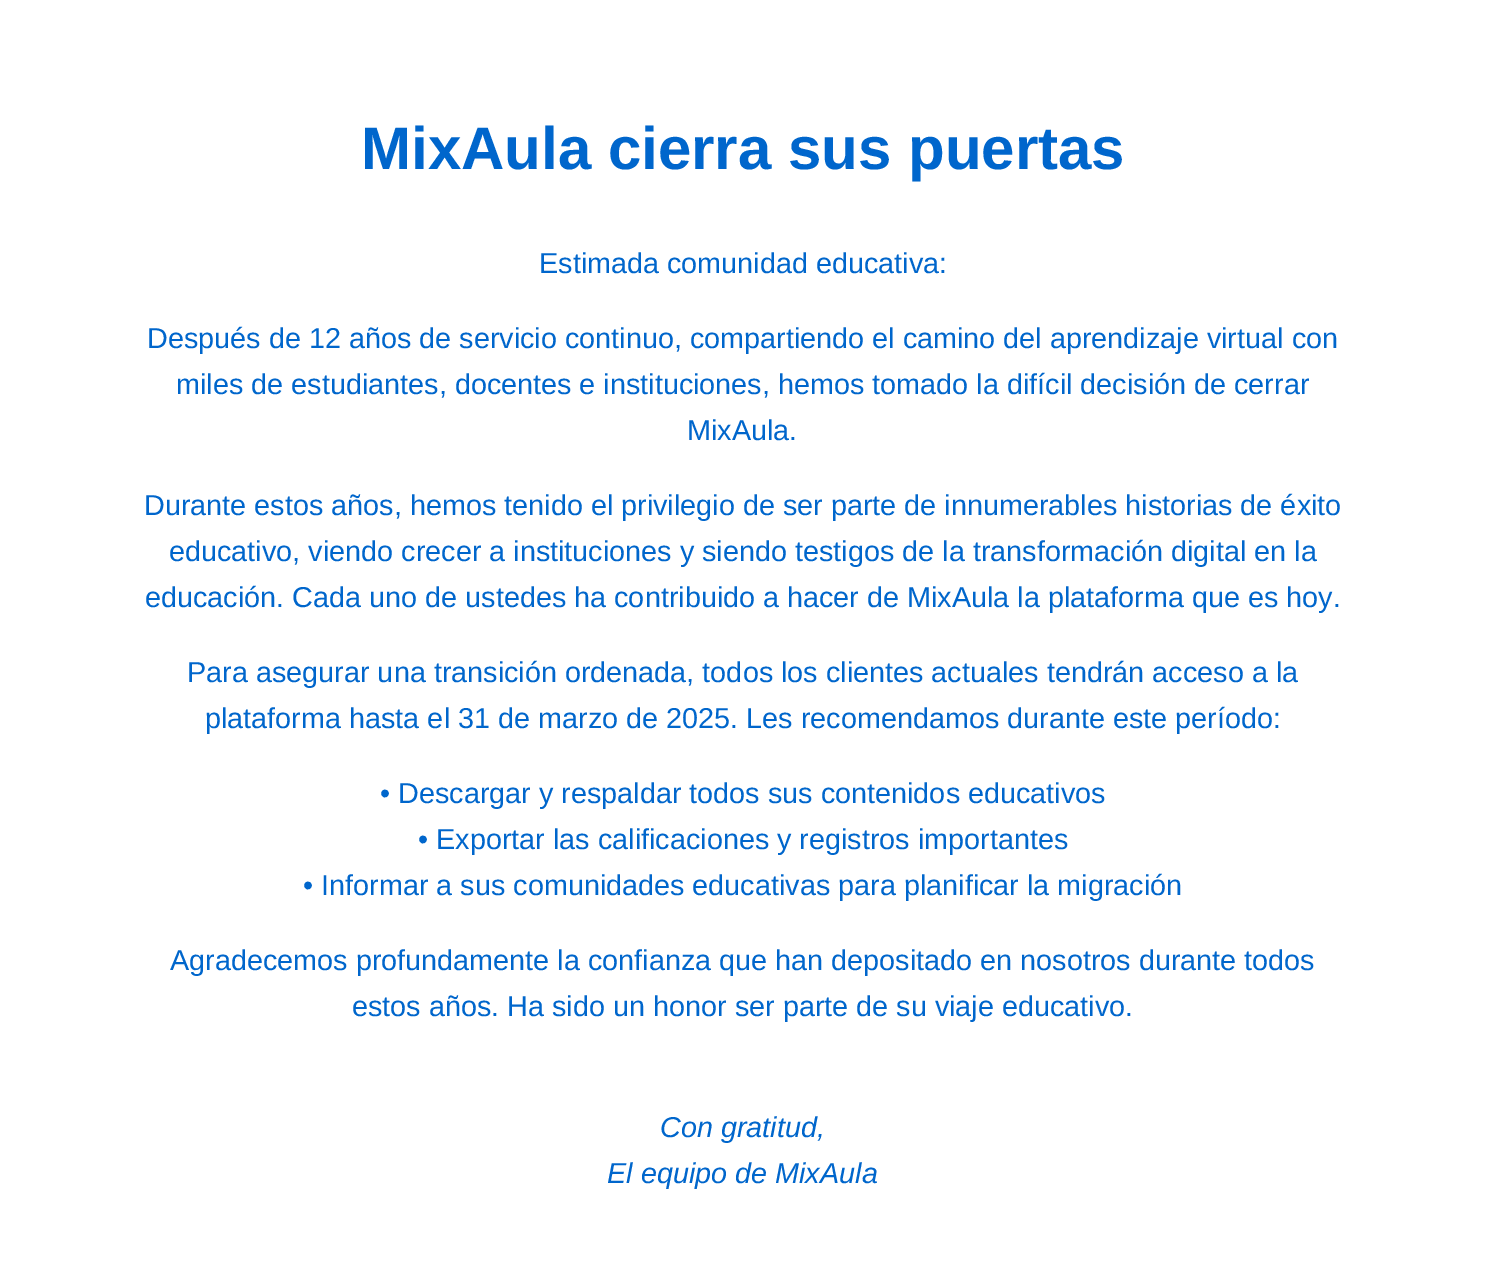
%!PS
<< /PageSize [1485 1269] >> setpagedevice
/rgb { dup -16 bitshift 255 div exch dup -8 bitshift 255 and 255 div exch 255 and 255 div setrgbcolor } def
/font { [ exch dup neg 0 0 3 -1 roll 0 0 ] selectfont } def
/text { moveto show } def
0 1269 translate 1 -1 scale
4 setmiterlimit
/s1 { /LiberationSans-Bold 60 font 16#0066CC rgb } def
/s2 { /LiberationSans-Regular 28.8 font 16#0066CC rgb } def
/s3 { /LiberationSans-Italic 28.8 font 16#0066CC rgb } def
16#FFFFFF rgb
0 0 1485 1269 rectfill
s1
(MixAula cierra sus puertas) 361 169 text
s2
(Estimada comunidad educativa:) 539 273 text
(Después de 12 años de servicio continuo, compartiendo el camino del aprendizaje virtual con) 147 348 text
(miles de estudiantes, docentes e instituciones, hemos tomado la difícil decisión de cerrar) 176 394 text
(MixAula.) 687 440 text
(Durante estos años, hemos tenido el privilegio de ser parte de innumerables historias de éxito) 144 515 text
(educativo, viendo crecer a instituciones y siendo testigos de la transformación digital en la) 169 561 text
(educación. Cada uno de ustedes ha contribuido a hacer de MixAula la plataforma que es hoy.) 145 607 text
(Para asegurar una transición ordenada, todos los clientes actuales tendrán acceso a la) 187 682 text
(plataforma hasta el 31 de marzo de 2025. Les recomendamos durante este período:) 205 728 text
(• Descargar y respaldar todos sus contenidos educativos) 380 803 text
(• Exportar las calificaciones y registros importantes) 418 849 text
(• Informar a sus comunidades educativas para planificar la migración) 303 895 text
(Agradecemos profundamente la confianza que han depositado en nosotros durante todos) 170 970 text
(estos años. Ha sido un honor ser parte de su viaje educativo.) 352 1016 text
s3
(Con gratitud,) 660 1137 text
(El equipo de MixAula) 607 1183 text
showpage
